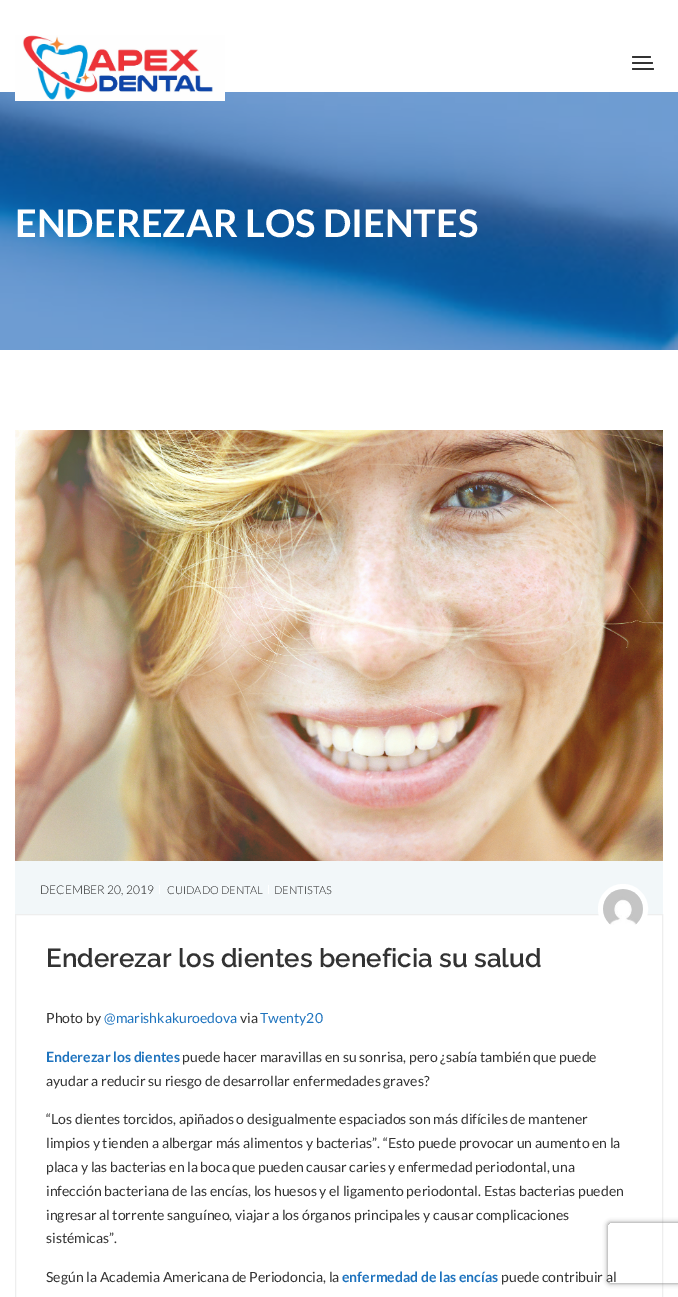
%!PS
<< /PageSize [678 1297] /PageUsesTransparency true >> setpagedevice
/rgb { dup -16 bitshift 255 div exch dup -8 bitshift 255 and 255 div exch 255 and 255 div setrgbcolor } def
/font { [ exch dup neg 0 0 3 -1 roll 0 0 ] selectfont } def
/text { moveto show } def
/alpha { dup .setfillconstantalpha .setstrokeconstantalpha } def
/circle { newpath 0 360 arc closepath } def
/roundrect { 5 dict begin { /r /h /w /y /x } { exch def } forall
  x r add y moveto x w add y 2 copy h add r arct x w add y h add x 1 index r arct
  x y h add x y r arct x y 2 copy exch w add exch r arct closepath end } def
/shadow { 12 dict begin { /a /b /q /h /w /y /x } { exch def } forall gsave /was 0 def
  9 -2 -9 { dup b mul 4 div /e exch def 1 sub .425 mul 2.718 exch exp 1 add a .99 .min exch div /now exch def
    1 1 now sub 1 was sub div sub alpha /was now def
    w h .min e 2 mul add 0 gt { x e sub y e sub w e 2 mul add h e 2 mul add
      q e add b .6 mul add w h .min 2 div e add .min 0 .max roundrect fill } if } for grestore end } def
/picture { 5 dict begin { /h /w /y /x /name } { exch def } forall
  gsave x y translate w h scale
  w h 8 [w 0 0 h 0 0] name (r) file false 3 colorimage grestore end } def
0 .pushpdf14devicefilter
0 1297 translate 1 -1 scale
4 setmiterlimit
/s1 { /Lato-Bold 38 font 16#FFFFFF rgb } def
/s2 { /Lato-Light 12 font 16#222222 rgb } def
/s3 { /Lato-Light 11 font 16#222222 rgb } def
/s4 { /Raleway-SemiBold 26 font 16#333333 rgb } def
/s5 { /Lato-Regular 14 font 16#333333 rgb } def
/s6 { /Lato-Regular 14 font 16#1E73BE rgb } def
/s7 { /Lato-Bold 14 font 16#1E73BE rgb } def
16#FFFFFF rgb
0 0 678 1297 rectfill
(pic2.raw) 0 92 678 258 picture
(pic1.raw) 15 35 210 66 picture
16#333333 rgb
633 56 moveto 643 56 lineto 643 58 lineto 633 58 lineto 632.5 58 632 57.5 632 57 curveto 632 56.5 632.5 56 633 56 curveto closepath fill
643 56 moveto 650 56 lineto 650.5 56 651 56.5 651 57 curveto 651 57.5 650.5 58 650 58 curveto 643 58 lineto closepath fill
633 62 moveto 643 62 lineto 643 64 lineto 633 64 lineto 632.5 64 632 63.5 632 63 curveto 632 62.5 632.5 62 633 62 curveto closepath fill
643 62 moveto 652 62 lineto 652.5 62 653 62.5 653 63 curveto 653 63.5 652.5 64 652 64 curveto 643 64 lineto closepath fill
633 68 moveto 643 68 lineto 643 70 lineto 633 70 lineto 632.5 70 632 69.5 632 69 curveto 632 68.5 632.5 68 633 68 curveto closepath fill
643 68 moveto 653 68 lineto 653.5 68 654 68.5 654 69 curveto 654 69.5 653.5 70 653 70 curveto 643 70 lineto closepath fill
s1
(ENDEREZAR LOS DIENTES) 15 237 text
(pic3.raw) 15 430 648 431 picture
16#F2F7F9 rgb
15 861 648 53 rectfill
16#FFFFFF rgb
159 885 1 9 rectfill
s2
(DECEMBER 20, 2019) 40 894 text
16#FFFFFF rgb
268 885 1 9 rectfill
s3
(CUIDADO DENTAL) 167 894 text
(DENTISTAS) 274 894 text
16#EEEEEE rgb
15.5 914.5 647 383 rectstroke
16#FFFFFF rgb
5 setlinewidth
623 909 22.5 circle stroke
(pic4.raw) 603 889 40 36 picture
s4
(Enderezar los dientes beneficia su salud) 46 967 text
s5
(Photo by) 46 1023 text
s6
(@marishkakuroedova) 104 1023 text
s5
(via) 240 1023 text
s6
(Twenty20) 260 1023 text
s7
(Enderezar los dientes) 46 1062 text
s5
(puede hacer maravillas en su sonrisa, pero ¿sabía también que puede) 182 1062 text
(ayudar a reducir su riesgo de desarrollar enfermedades graves?) 46 1086 text
(“Los dientes torcidos, apiñados o desigualmente espaciados son más difíciles de mantener) 46 1124 text
(limpios y tienden a albergar más alimentos y bacterias”. “Esto puede provocar un aumento en la) 46 1148 text
(placa y las bacterias en la boca que pueden causar caries y enfermedad periodontal, una) 46 1172 text
(infección bacteriana de las encías, los huesos y el ligamento periodontal. Estas bacterias pueden) 46 1196 text
(ingresar al torrente sanguíneo, viajar a los órganos principales y causar complicaciones) 46 1220 text
(sistémicas”.) 46 1243 text
(Según la Academia Americana de Periodoncia, la) 46 1282 text
s7
(enfermedad de las encías) 342 1282 text
s5
(puede contribuir al) 501 1282 text
gsave
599 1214 moveto 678 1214 lineto 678 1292 lineto 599 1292 lineto closepath 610 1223 moveto 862 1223 lineto 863 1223 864 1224 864 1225 curveto 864 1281 lineto 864 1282 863 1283 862 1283 curveto 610 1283 lineto 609 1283 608 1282 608 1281 curveto 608 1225 lineto 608 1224 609 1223 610 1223 curveto closepath eoclip newpath
16#808080 rgb
608 1223 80 60 2 2.5 1 shadow
grestore
.poppdf14devicefilter showpage
